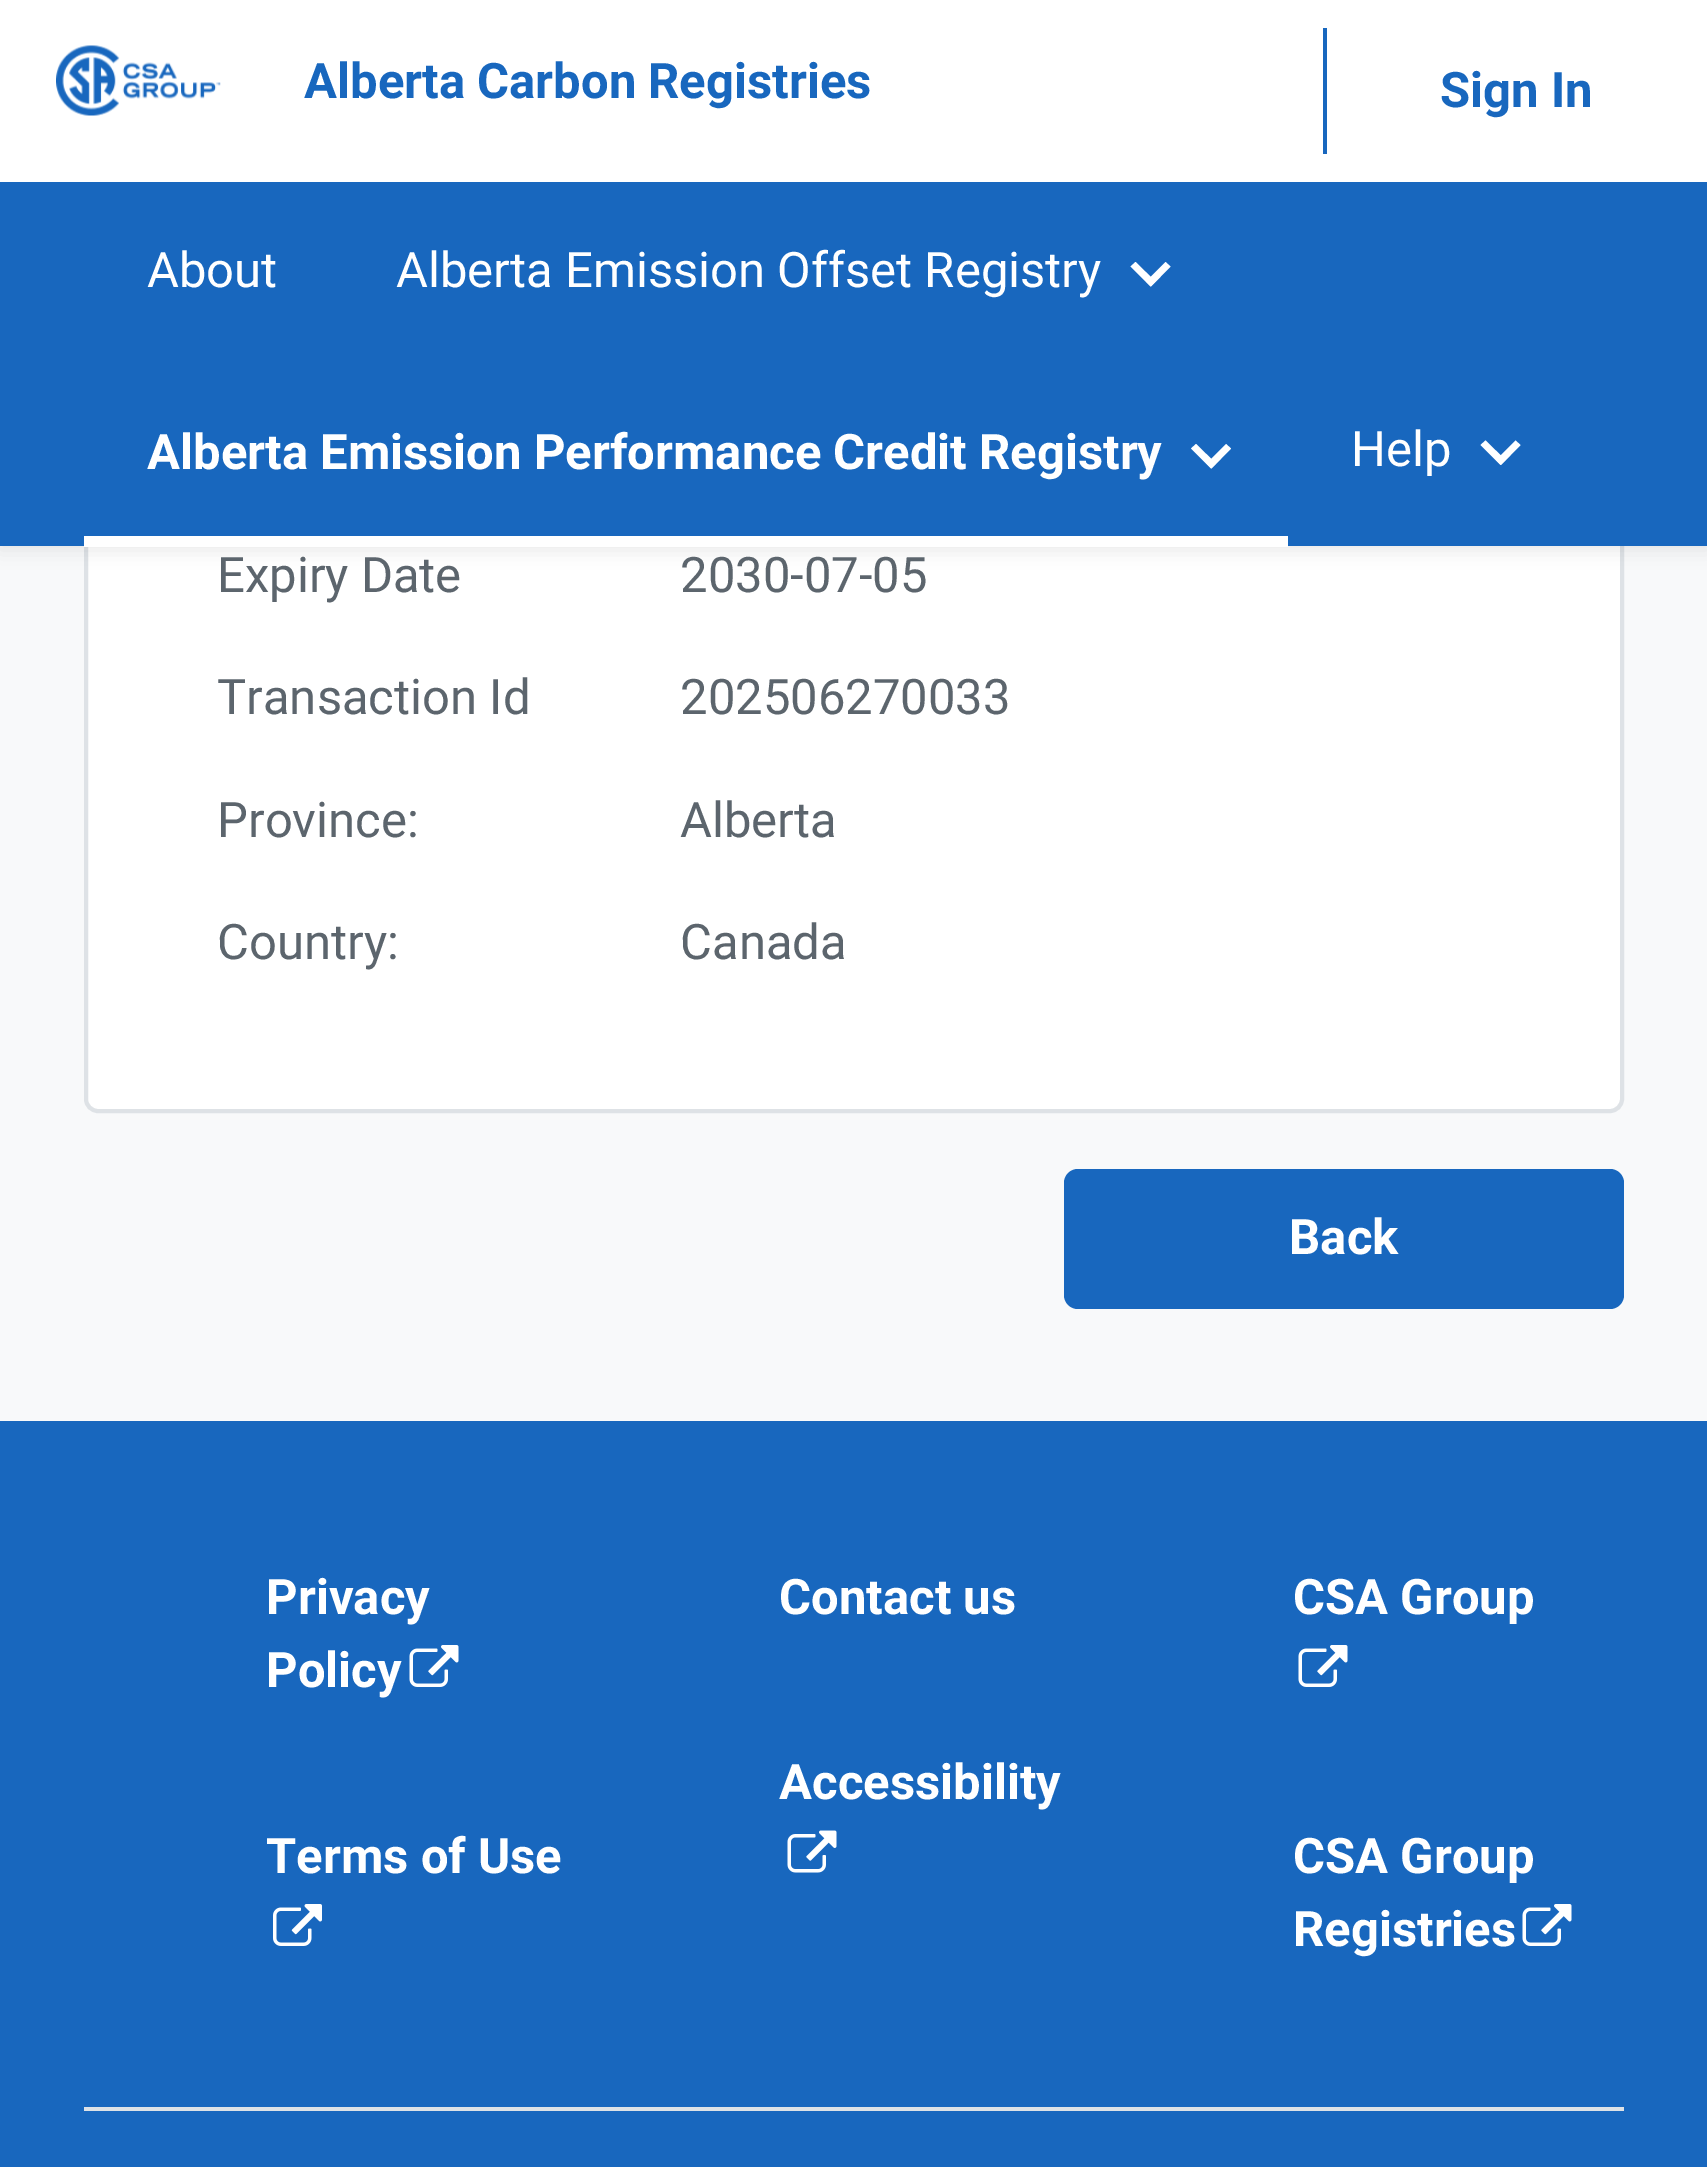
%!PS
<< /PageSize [1707 2167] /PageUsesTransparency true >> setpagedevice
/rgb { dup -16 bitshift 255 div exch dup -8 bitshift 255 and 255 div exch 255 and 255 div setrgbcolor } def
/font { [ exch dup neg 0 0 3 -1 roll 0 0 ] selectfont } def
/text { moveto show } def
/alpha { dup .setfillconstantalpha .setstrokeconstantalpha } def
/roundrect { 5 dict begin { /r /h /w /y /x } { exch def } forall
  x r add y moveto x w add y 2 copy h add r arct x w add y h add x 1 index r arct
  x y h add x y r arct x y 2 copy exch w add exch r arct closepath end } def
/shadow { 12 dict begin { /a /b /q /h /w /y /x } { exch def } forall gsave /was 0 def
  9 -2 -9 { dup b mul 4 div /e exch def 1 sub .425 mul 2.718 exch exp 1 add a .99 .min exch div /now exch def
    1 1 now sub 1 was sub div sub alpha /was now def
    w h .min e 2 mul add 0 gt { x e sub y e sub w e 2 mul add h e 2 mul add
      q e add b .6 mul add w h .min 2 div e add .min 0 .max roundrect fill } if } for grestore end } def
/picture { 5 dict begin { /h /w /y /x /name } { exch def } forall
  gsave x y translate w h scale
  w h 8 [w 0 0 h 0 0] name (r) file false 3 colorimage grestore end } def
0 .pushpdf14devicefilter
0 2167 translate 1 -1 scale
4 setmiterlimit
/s1 { /Roboto-Bold 49 font 16#1867BE rgb } def
/s2 { /Roboto-Regular 49 font 16#FFFFFF rgb } def
/s3 { /Roboto-Bold 49 font 16#FFFFFF rgb } def
/s4 { /Roboto-Regular 49 font 16#5C656D rgb } def
16#F8F9FA rgb
0 0 1707 2167 rectfill
16#FFFFFF rgb
86 -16 1536 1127 12 roundrect gsave fill grestore
16#DEE2E6 rgb
4 setlinewidth
stroke
16#15181A rgb
0 4 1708 546 0 9 0.1 shadow
16#FFFFFF rgb
0 0 1707 182 rectfill
(pic1.raw) 56 45 165 71 picture
s1
(Alberta Carbon Registries) 304 98 text
1323 28 4 126 rectfill
(Sign In) 1440 107 text
0 182 1707 364 rectfill
s2
(About) 147 287 text
(Alberta Emission Offset Registry) 396 287 text
1130.5 266.5 moveto 1135.5 262 lineto 1155.5 281.5 lineto 1150.5 286.5 lineto closepath fill
1165.5 262 moveto 1170.5 266.5 lineto 1151 286.5 lineto 1146 281.5 lineto closepath fill
84 536 1204 11 rectfill
s3
(Alberta Emission Performance Credit Registry) 147 469 text
1191 448.5 moveto 1196 444 lineto 1216 463.5 lineto 1211 468.5 lineto closepath fill
1226 444 moveto 1231 448.5 lineto 1211.5 468.5 lineto 1206.5 463.5 lineto closepath fill
s2
(Help) 1351 466 text
1480.5 445 moveto 1485.5 440.5 lineto 1505.5 460 lineto 1500.5 465 lineto closepath fill
1515.5 440.5 moveto 1520.5 445 lineto 1501 465 lineto 1496 460 lineto closepath fill
s4
(Expiry Date) 217 592 text
(2030-07-05) 680 592 text
(Transaction Id) 217 714 text
(202506270033) 680 714 text
(Province:) 217 837 text
(Alberta) 680 837 text
(Country:) 217 959 text
(Canada) 680 959 text
16#1867BE rgb
1064 1169 560 140 14 roundrect fill
s3
(Back) 1289 1254 text
16#1867BE rgb
0 1421 1707 746 rectfill
s3
(Privacy) 266 1614 text
(Policy) 266 1687 text
(pic2.raw) 409 1645 50 42 picture
(Terms of Use) 266 1873 text
(pic3.raw) 273 1904 49 42 picture
(Contact us) 779 1614 text
(Accessibility) 779 1799 text
(pic4.raw) 787 1830 50 43 picture
(CSA Group) 1293 1614 text
(pic2.raw) 1298 1645 50 42 picture
(CSA Group) 1293 1873 text
(Registries) 1293 1946 text
(pic2.raw) 1522 1904 50 42 picture
16#DEE2E6 rgb
84 2107 1540 4 rectfill
.poppdf14devicefilter showpage
